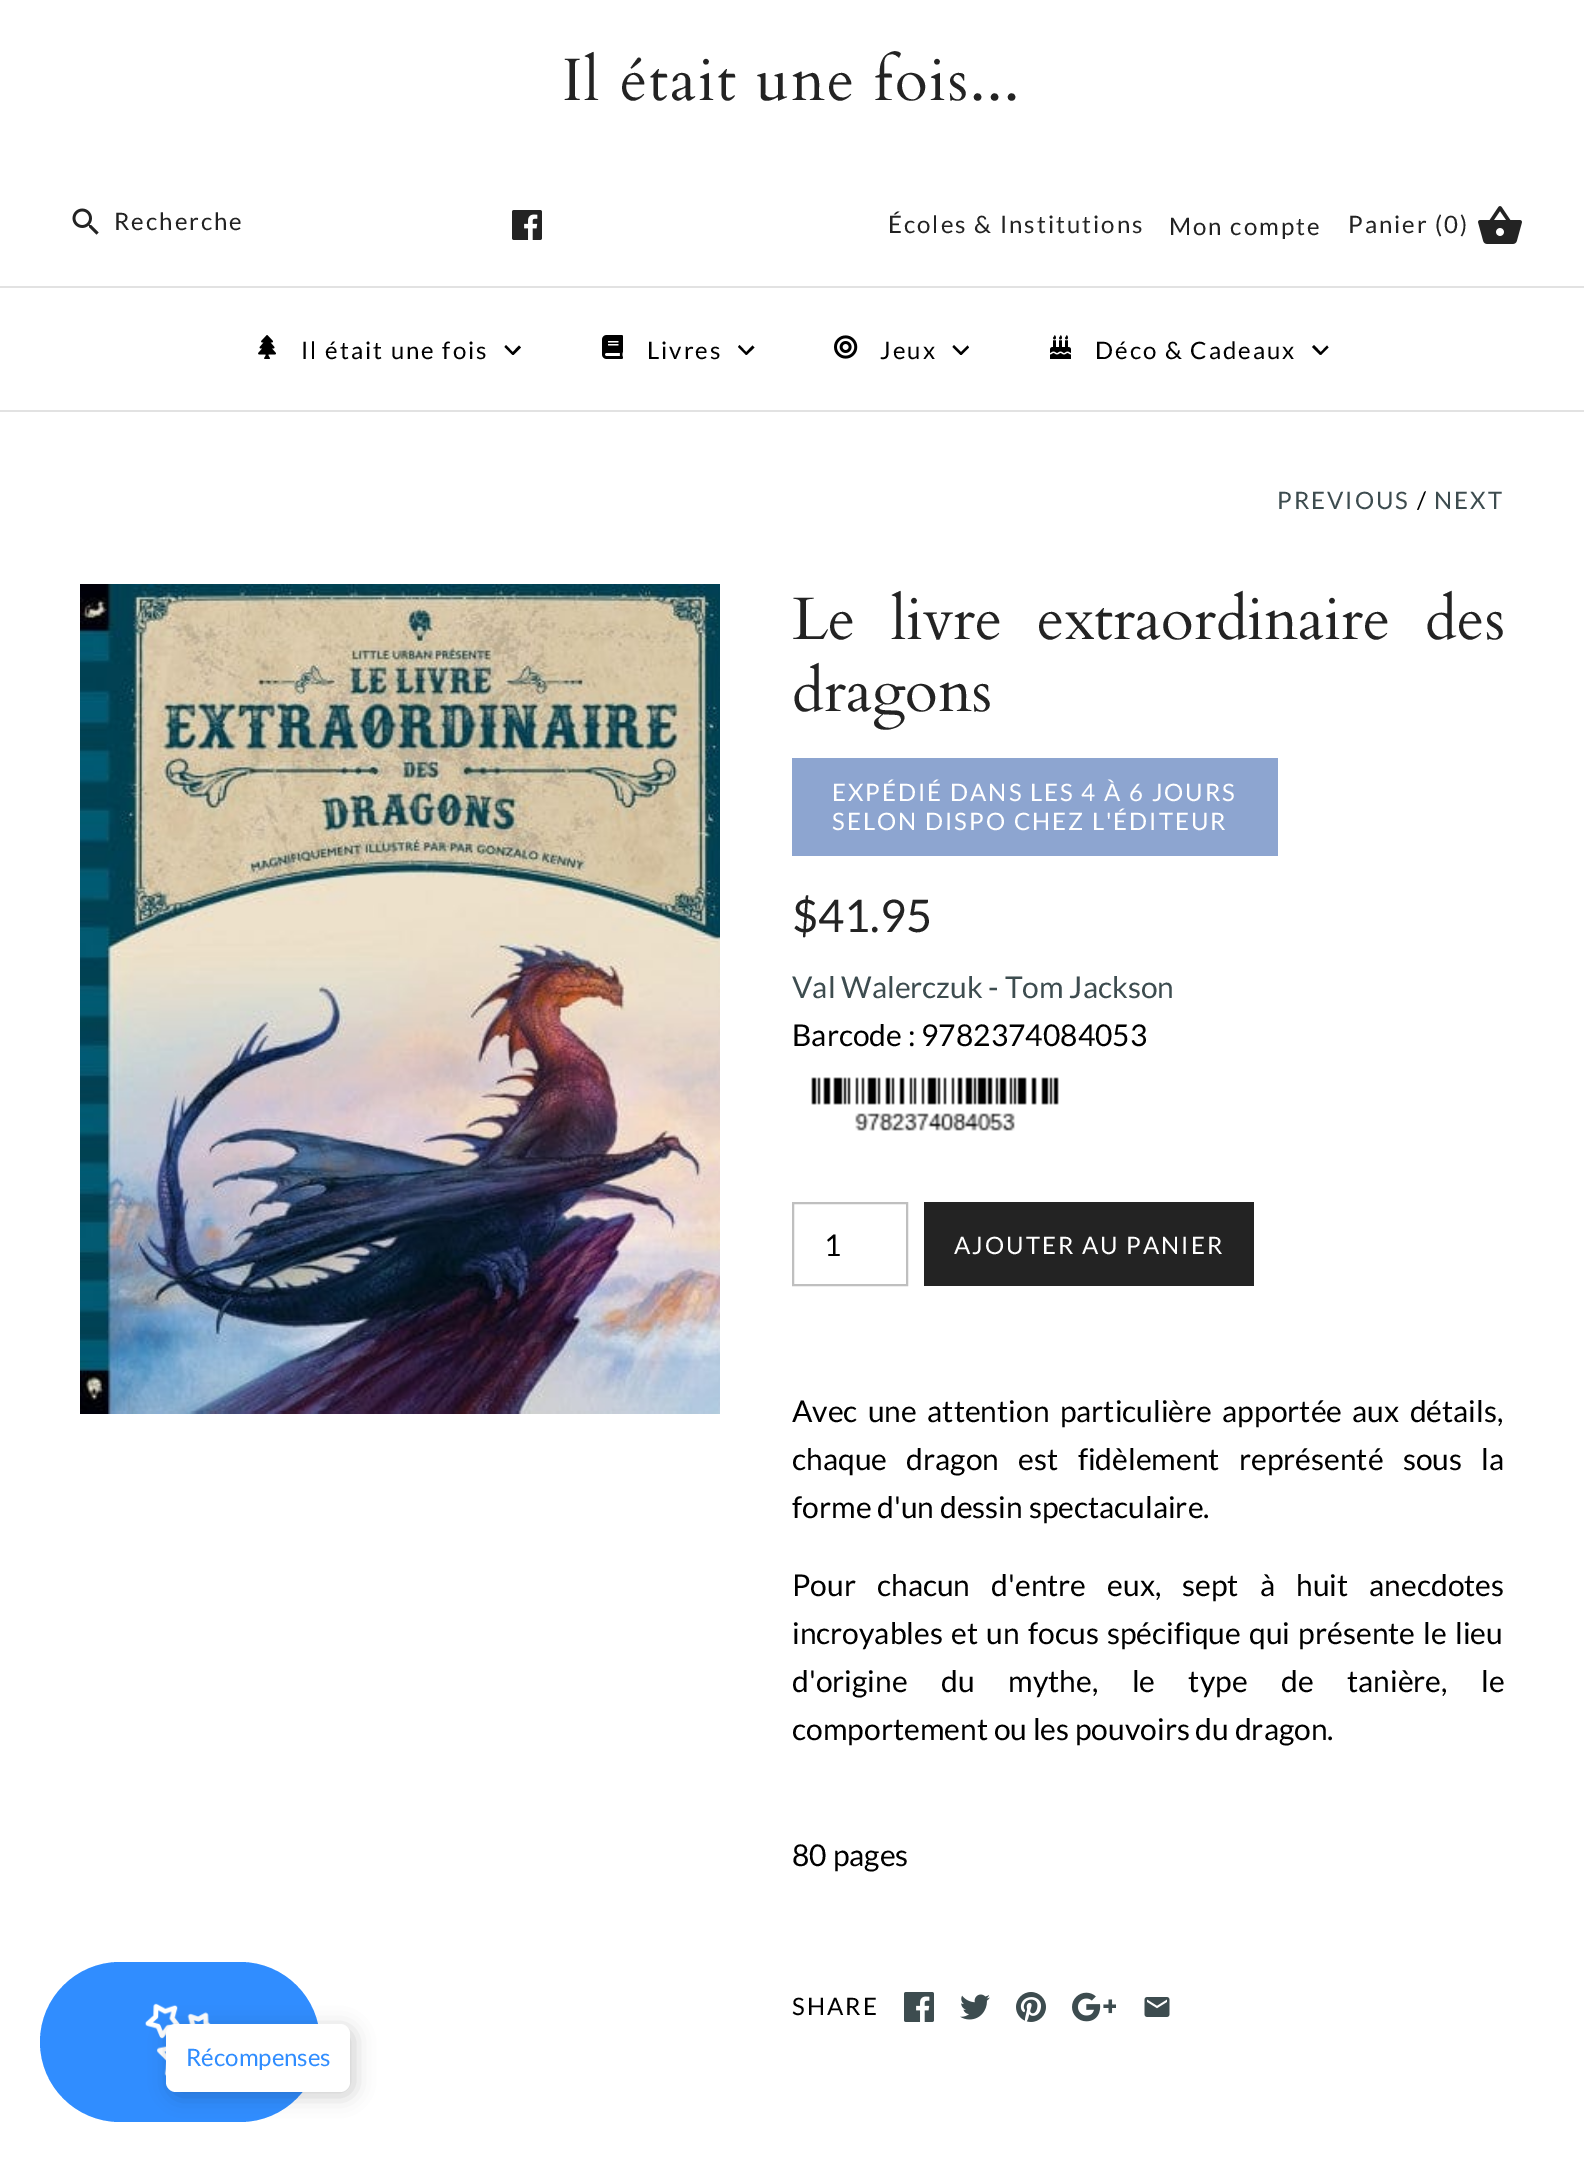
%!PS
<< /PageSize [1584 2161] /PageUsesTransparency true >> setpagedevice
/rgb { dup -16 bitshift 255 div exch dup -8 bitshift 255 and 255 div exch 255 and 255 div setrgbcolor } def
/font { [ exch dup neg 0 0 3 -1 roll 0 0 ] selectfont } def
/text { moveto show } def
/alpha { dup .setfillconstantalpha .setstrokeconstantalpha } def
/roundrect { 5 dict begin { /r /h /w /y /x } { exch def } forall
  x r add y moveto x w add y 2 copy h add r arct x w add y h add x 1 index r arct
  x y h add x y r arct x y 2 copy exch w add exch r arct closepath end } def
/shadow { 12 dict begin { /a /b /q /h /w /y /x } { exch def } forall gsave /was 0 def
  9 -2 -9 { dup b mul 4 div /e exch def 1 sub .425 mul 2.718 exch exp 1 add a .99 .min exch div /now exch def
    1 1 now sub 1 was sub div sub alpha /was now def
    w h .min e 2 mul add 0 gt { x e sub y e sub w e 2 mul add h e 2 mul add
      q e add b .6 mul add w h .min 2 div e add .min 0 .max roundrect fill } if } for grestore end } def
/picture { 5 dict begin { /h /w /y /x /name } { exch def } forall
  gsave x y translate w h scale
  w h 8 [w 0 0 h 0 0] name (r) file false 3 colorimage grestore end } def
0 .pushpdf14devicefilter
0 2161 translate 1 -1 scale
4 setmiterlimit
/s1 { /Cardo-Regular 60 font 16#232323 rgb } def
/s2 { /Lato-Regular 45 font 16#232323 rgb } def
/s3 { /Lato-Regular 30 font 16#3D4C4F rgb } def
/s4 { /Lato-Regular 30 font 16#000000 rgb } def
/s5 { /Lato-Regular 24 font 16#308DFF rgb } def
16#FFFFFF rgb
0 0 1584 2161 rectfill
/Cardo-Regular 60 font
16#232323 rgb
562 100 moveto 2 0 (Il était une fois...) ashow
(pic1.raw) 72 208 27 27 picture
/Lato-Regular 24 font
114 230 moveto 2 0 (Recherche) ashow
(pic2.raw) 512 210 30 30 picture
888 233 moveto 2 0 (Écoles & Institutions) ashow
1169 235 moveto 2 0 (Mon compte) ashow
1348 233 moveto 2 0 (Panier \(0\)) ashow
(pic3.raw) 1478 206 44 38 picture
16#E2E2E2 rgb
0 410 1584 2 rectfill
0 286 1584 2 rectfill
(pic4.raw) 258 335 18 24 picture
16#000000 rgb
301 359 moveto 2 0 (Il était une fois) ashow
519 345.5 moveto 521 347.5 lineto 513.5 355 lineto 511.5 353.5 lineto closepath fill
506 345 moveto 514 353.5 lineto 512.5 355 lineto 504.5 347 lineto closepath fill
(pic5.raw) 602 335 21 24 picture
647 359 moveto 2 0 (Livres) ashow
752.5 345.5 moveto 754.5 347.5 lineto 746.5 355 lineto 745 353.5 lineto closepath fill
739.5 345 moveto 747.5 353.5 lineto 746 355 lineto 738 347 lineto closepath fill
(pic6.raw) 834 335 24 24 picture
880 359 moveto 2 0 (Jeux) ashow
967.5 345.5 moveto 969 347.5 lineto 961.5 355 lineto 959.5 353.5 lineto closepath fill
954 345 moveto 962.5 353.5 lineto 960.5 355 lineto 952.5 347 lineto closepath fill
(pic7.raw) 1050 335 21 24 picture
1095 359 moveto 2 0 (Déco & Cadeaux) ashow
1327 345.5 moveto 1328.5 347.5 lineto 1321 355 lineto 1319.5 353.5 lineto closepath fill
1314 345 moveto 1322 353.5 lineto 1320 355 lineto 1312 347 lineto closepath fill
16#3D4C4F rgb
1277 509 moveto 2 0 (PREVIOUS) ashow
16#000000 rgb
1417 509 moveto 2 0 (/) ashow
16#3D4C4F rgb
1434 509 moveto 2 0 (NEXT) ashow
(pic8.raw) 80 584 640 830 picture
/Cardo-Regular 60 font
16#232323 rgb
792 639 moveto 19 0 32 (Le livre extraordinaire des) widthshow
(dragons) 792 711 text
16#8DA5D0 rgb
792 758 486 98 rectfill
/Lato-Regular 24 font
16#FFFFFF rgb
832 801 moveto 2 0 (EXPÉDIÉ DANS LES 4 À 6 JOURS) ashow
832 830 moveto 2 0 (SELON DISPO CHEZ L'ÉDITEUR) ashow
s2
($41.95) 792 932 text
s3
(Val Walerczuk - Tom Jackson) 792 998 text
s4
(Barcode : 9782374084053) 792 1046 text
(pic9.raw) 811 1077 248 54 picture
16#BFBFBF rgb
2 setlinewidth
793 1203 114 82 rectstroke
s4
(1) 824 1256 text
16#232323 rgb
924 1202 330 84 rectfill
/Lato-Regular 24 font
16#FFFFFF rgb
954 1254 moveto 2 0 (AJOUTER AU PANIER) ashow
/Lato-Regular 30 font
16#000000 rgb
792 1422 moveto 4.5 0 32 (Avec une attention particulière apportée aux détails,) widthshow
792 1470 moveto 13.5 0 32 (chaque dragon est fidèlement représenté sous la) widthshow
(forme d'un dessin spectaculaire.) 792 1518 text
792 1596 moveto 15.25 0 32 (Pour chacun d'entre eux, sept à huit anecdotes) widthshow
792 1644 moveto 2.5 0 32 (incroyables et un focus spécifique qui présente le lieu) widthshow
792 1692 moveto 27.75 0 32 (d'origine du mythe, le type de tanière, le) widthshow
(comportement ou les pouvoirs du dragon.) 792 1740 text
(80 pages) 792 1866 text
/Lato-Regular 24 font
792 2015 moveto 2 0 (SHARE) ashow
(pic10.raw) 904 1992 30 30 picture
(pic11.raw) 960 1994 30 26 picture
(pic12.raw) 1016 1992 30 30 picture
(pic13.raw) 1072 1992 44 30 picture
(pic14.raw) 1144 1997 26 20 picture
16#308DFF rgb
40 1962 280 160 80 roundrect fill
(pic15.raw) 145 2003 66 73 picture
16#000000 rgb
170 2028 184 68 10 10 0.2 shadow
16#FFFFFF rgb
166 2024 184 68 10 roundrect fill
s5
(Récompenses) 186 2066 text
.poppdf14devicefilter showpage
